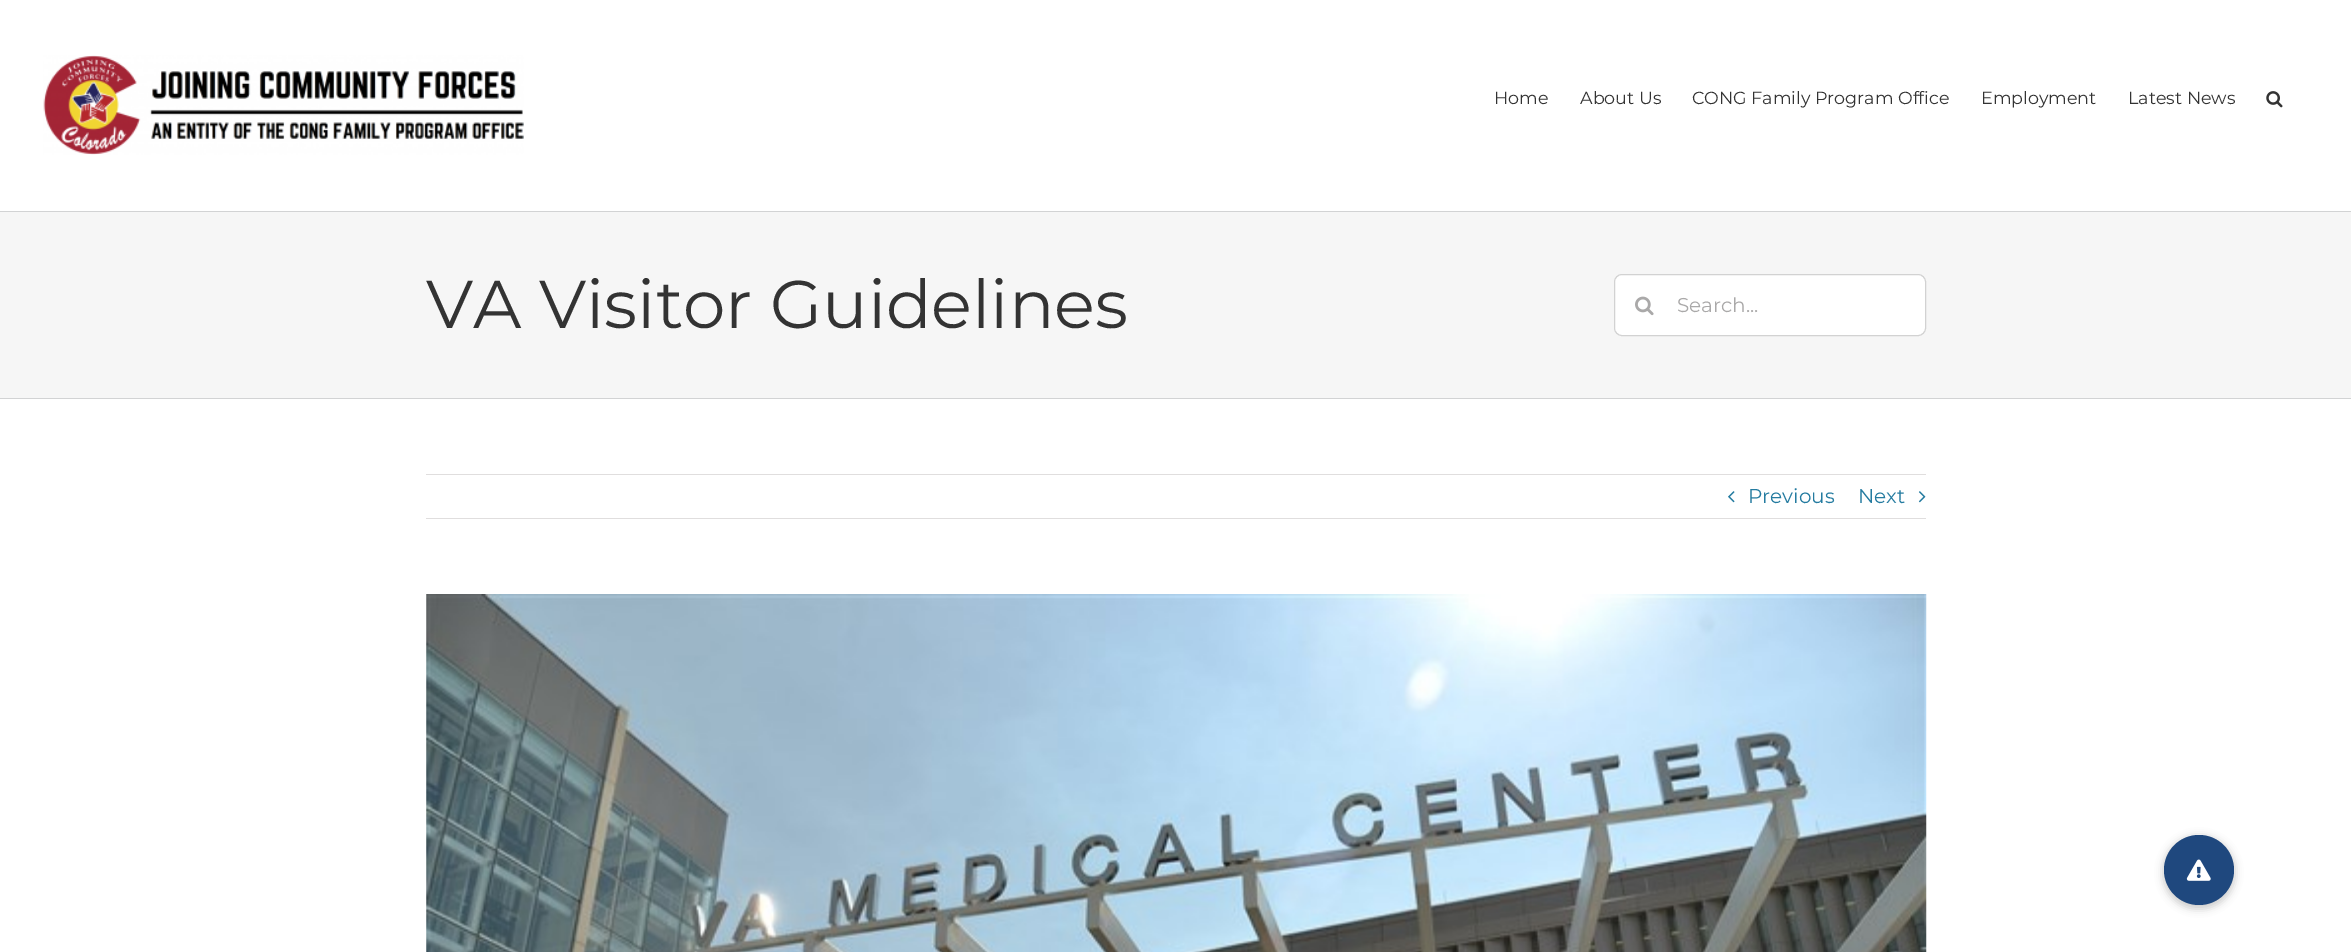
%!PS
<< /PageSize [2351 952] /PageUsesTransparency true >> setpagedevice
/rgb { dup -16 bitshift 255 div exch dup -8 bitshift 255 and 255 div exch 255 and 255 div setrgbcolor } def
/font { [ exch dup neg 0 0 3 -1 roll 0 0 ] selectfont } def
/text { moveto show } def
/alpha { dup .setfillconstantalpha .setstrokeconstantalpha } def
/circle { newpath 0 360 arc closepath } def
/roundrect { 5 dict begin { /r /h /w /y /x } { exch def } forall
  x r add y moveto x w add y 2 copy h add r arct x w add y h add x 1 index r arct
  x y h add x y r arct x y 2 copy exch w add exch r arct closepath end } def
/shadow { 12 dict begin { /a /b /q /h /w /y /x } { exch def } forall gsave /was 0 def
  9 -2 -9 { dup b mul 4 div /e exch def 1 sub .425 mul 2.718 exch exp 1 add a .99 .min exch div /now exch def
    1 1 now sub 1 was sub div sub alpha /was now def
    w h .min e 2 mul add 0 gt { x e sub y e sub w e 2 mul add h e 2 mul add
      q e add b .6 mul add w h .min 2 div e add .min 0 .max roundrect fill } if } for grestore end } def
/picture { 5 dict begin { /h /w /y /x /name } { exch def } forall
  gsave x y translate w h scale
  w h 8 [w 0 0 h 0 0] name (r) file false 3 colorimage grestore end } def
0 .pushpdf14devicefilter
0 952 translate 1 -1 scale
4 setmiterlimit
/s1 { /Montserrat-Regular 17.5 font 16#333333 rgb } def
/s2 { /Montserrat-Regular 67.5 font 16#333333 rgb } def
/s3 { /Montserrat-Regular 20 font 16#AAA9A9 rgb } def
/s4 { /Montserrat-Regular 20 font 16#247BA0 rgb } def
16#FFFFFF rgb
0 0 2351 952 rectfill
(pic1.raw) 43 55 481 100 picture
s1
(Home) 1494 104 text
(About Us) 1580 104 text
(CONG Family Program Office) 1692 104 text
(Employment) 1981 104 text
(Latest News) 2128 104 text
(pic2.raw) 2266 91 17 17 picture
16#F6F6F6 rgb
0 212 2351 186 rectfill
16#D2D3D4 rgb
0 211 2351 1 rectfill
0 398 2351 1 rectfill
s2
(VA Visitor Guidelines) 426 328 text
16#FFFFFF rgb
1614.5 274.5 311 61 7.5 roundrect gsave fill grestore
16#D2D2D2 rgb
stroke
(pic3.raw) 1635 296 19 20 picture
s3
(Search...) 1677 312 text
16#E0DEDE rgb
426 474 1500 1 rectfill
426 518 1500 1 rectfill
(pic4.raw) 1728 491 7 12 picture
s4
(Previous) 1748 503 text
(Next) 1858 503 text
(pic5.raw) 1918 491 8 12 picture
(pic6.raw) 426 594 1501 358 picture
16#000000 rgb
2163 836 72 73 36 4 0.2 shadow
16#1F487E rgb
2199 870 35 circle fill
(pic7.raw) 2186 859 25 22 picture
.poppdf14devicefilter showpage
